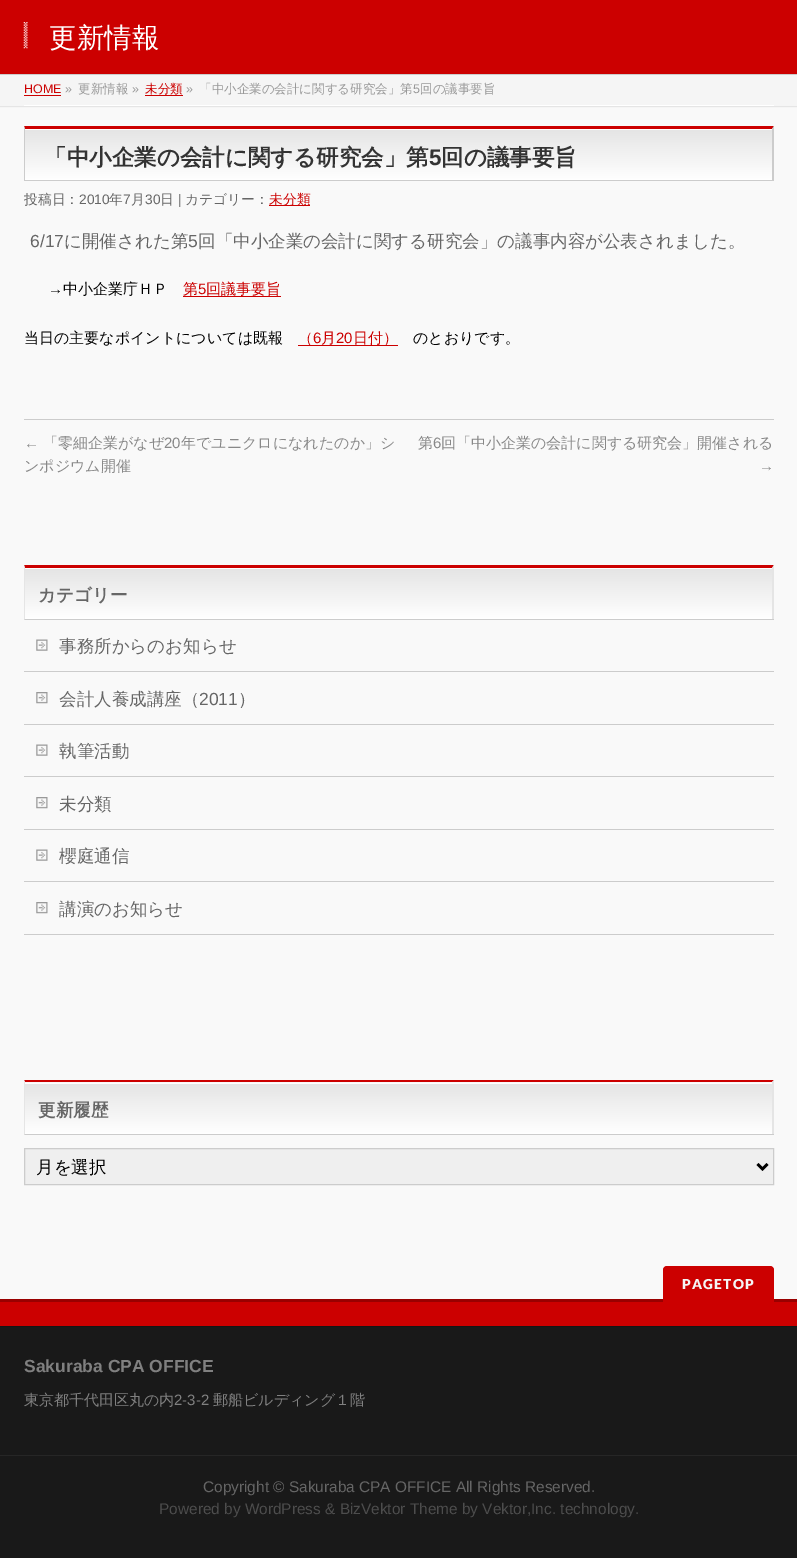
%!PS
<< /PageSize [797 1558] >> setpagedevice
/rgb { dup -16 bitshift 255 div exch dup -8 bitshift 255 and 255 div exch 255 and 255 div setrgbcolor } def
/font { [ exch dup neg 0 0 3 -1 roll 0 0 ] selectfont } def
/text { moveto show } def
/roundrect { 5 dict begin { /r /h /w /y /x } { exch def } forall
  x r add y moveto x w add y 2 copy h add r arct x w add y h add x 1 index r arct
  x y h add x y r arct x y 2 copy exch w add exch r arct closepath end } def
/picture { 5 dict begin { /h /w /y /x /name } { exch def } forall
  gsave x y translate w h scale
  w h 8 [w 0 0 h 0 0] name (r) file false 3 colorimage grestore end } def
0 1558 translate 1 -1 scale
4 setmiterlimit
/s1 { /WenQuanYiZenHei-Medium 27.5 font 16#FFFFFF rgb } def
/s2 { /LiberationSans-Regular 12.5 font 16#CC0000 rgb } def
/s3 { /LiberationSans-Regular 12.5 font 16#999999 rgb } def
/s4 { /WenQuanYiZenHei-Medium 12.5 font 16#999999 rgb } def
/s5 { /WenQuanYiZenHei-Medium 12.5 font 16#CC0000 rgb } def
/s6 { /WenQuanYiZenHei-Bold 22.5 font 16#333333 rgb } def
/s7 { /LiberationSans-Bold 22.5 font 16#333333 rgb } def
/s8 { /WenQuanYiZenHei-Medium 13.75 font 16#666666 rgb } def
/s9 { /LiberationSans-Regular 13.75 font 16#666666 rgb } def
/s10 { /WenQuanYiZenHei-Medium 13.75 font 16#CC0000 rgb } def
/s11 { /LiberationSans-Regular 17.5 font 16#666666 rgb } def
/s12 { /WenQuanYiZenHei-Medium 17.5 font 16#666666 rgb } def
/s13 { /LiberationSans-Regular 15 font 16#000000 rgb } def
/s14 { /WenQuanYiZenHei-Medium 15 font 16#000000 rgb } def
/s15 { /WenQuanYiZenHei-Medium 15 font 16#CC0000 rgb } def
/s16 { /LiberationSans-Regular 15 font 16#CC0000 rgb } def
/s17 { /LiberationSans-Regular 15 font 16#888888 rgb } def
/s18 { /WenQuanYiZenHei-Medium 15 font 16#888888 rgb } def
/s19 { /WenQuanYiZenHei-Bold 17.5 font 16#666666 rgb } def
/s20 { /WenQuanYiZenHei-Medium 17.5 font 16#000000 rgb } def
/s21 { /LiberationSans-Bold 17.5 font 16#808080 rgb } def
/s22 { /WenQuanYiZenHei-Medium 15 font 16#808080 rgb } def
/s23 { /LiberationSans-Regular 15 font 16#808080 rgb } def
/s24 { /LiberationSans-Regular 15.4 font 16#666666 rgb } def
/s25 { /LiberationSans-Regular 15.4 font 16#4D4D4D rgb } def
16#F9F9F9 rgb
0 0 797 1558 rectfill
16#CC0000 rgb
0 0 797 74 rectfill
16#CCCCCC rgb
0 74 797 1 rectfill
(pic1.raw) 23 22 5 27 picture
s1
(更新情報) 49 47 text
16#F5F5F5 rgb
0 75 797 33 rectfill
16#E5E5E5 rgb
0 106 797 1 rectfill
16#FFFFFF rgb
24 105 750 1 rectfill
s2
(HOME) 24 93 text
24 95 37 1 rectfill
s3
(») 65 93 text
s4
(更新情報) 78 93 text
s3
(») 132 93 text
16#CC0000 rgb
145 95 38 1 rectfill
s5
(未分類) 145 93 text
s3
(») 186 93 text
s4
(「中小企業の会計に関する研究会」第) 199 93 text
s3
(5) 413 93 text
s4
(回の議事要旨) 420 93 text
gsave 25 130 moveto 772 130 lineto 772 180 lineto 25 180 lineto closepath clip newpath
<< /ShadingType 2 /ColorSpace /DeviceRGB /Coords [25 129 25 180] /Extend [true true] /Function << /FunctionType 2 /Domain [0 1] /C0 [0.898 0.898 0.898] /C1 [1 1 1] /N 1 >> >> shfill grestore
16#FFFFFF rgb
25 129 748 1 rectfill
16#CC0000 rgb
24 126 moveto 774 126 lineto 772 129 lineto 25 129 lineto closepath fill
16#CCCCCC rgb
774 126 moveto 774 181 lineto 772 180 lineto 772 129 lineto closepath fill
24 180 750 1 rectfill
24 181 moveto 24 126 lineto 25 129 lineto 25 180 lineto closepath fill
s6
(「中小企業の会計に関する研究会」第) 44 165 text
s7
(5) 429 165 text
s6
(回の議事要旨) 441 165 text
s8
(投稿日：) 24 204 text
s9
(2010) 79 204 text
s8
(年) 109 204 text
s9
(7) 123 204 text
s8
(月) 131 204 text
s9
(30) 145 204 text
s8
(日) 160 204 text
s9
(|) 178 204 text
s8
(カテゴリー：) 185 204 text
16#CC0000 rgb
269 205 41 1 rectfill
(未分類) 269 204 text
s11
(6/17) 30 247 text
s12
(に開催された第) 64 247 text
s11
(5) 188 247 text
s12
(回「中小企業の会計に関する研究会」の議事内容が公表されました。) 198 247 text
s13
(→) 48 294 text
s14
(中小企業庁ＨＰ) 63 294 text
s15
(第) 183 294 text
s16
(5) 198 294 text
183 296 98 1 rectfill
s15
(回議事要旨) 206 294 text
s14
(当日の主要なポイントについては既報) 24 343 text
16#CC0000 rgb
298 345 100 1 rectfill
(（) 298 343 text
s16
(6) 313 343 text
s15
(月) 321 343 text
s16
(20) 336 343 text
s15
(日付）) 353 343 text
s14
(のとおりです。) 413 343 text
16#CCCCCC rgb
24 419 750 1 rectfill
s17
(←) 24 448 text
s18
(「零細企業がなぜ) 43 448 text
s17
(20) 164 448 text
s18
(年でユニクロになれたのか」シ) 181 448 text
(ンポジウム開催) 24 471 text
(第) 418 448 text
s17
(6) 433 448 text
s18
(回「中小企業の会計に関する研究会」開催される) 441 448 text
s17
(→) 759 471 text
gsave 25 569 moveto 772 569 lineto 772 619 lineto 25 619 lineto closepath clip newpath
<< /ShadingType 2 /ColorSpace /DeviceRGB /Coords [25 568 25 619] /Extend [true true] /Function << /FunctionType 2 /Domain [0 1] /C0 [0.898 0.898 0.898] /C1 [1 1 1] /N 1 >> >> shfill grestore
16#FFFFFF rgb
25 568 748 1 rectfill
16#CC0000 rgb
24 565 moveto 774 565 lineto 772 568 lineto 25 568 lineto closepath fill
16#E5E5E5 rgb
774 565 moveto 774 620 lineto 772 619 lineto 772 568 lineto closepath fill
16#CCCCCC rgb
24 619 750 1 rectfill
16#E5E5E5 rgb
24 620 moveto 24 565 lineto 25 568 lineto 25 619 lineto closepath fill
s19
(カテゴリー) 38 601 text
16#CCCCCC rgb
24 671 750 1 rectfill
(pic2.raw) 36 639 12 12 picture
s12
(事務所からのお知らせ) 59 652 text
16#CCCCCC rgb
24 724 750 1 rectfill
(pic3.raw) 36 692 12 12 picture
s12
(会計人養成講座（) 59 705 text
s11
(2011) 199 705 text
s12
(）) 238 705 text
16#CCCCCC rgb
24 776 750 1 rectfill
(pic2.raw) 36 744 12 12 picture
s12
(執筆活動) 59 757 text
16#CCCCCC rgb
24 829 750 1 rectfill
(pic3.raw) 36 797 12 12 picture
s12
(未分類) 59 810 text
16#CCCCCC rgb
24 881 750 1 rectfill
(pic2.raw) 36 849 12 12 picture
s12
(櫻庭通信) 59 862 text
16#CCCCCC rgb
24 934 750 1 rectfill
(pic3.raw) 36 902 12 12 picture
s12
(講演のお知らせ) 59 915 text
gsave 25 1084 moveto 772 1084 lineto 772 1134 lineto 25 1134 lineto closepath clip newpath
<< /ShadingType 2 /ColorSpace /DeviceRGB /Coords [25 1083 25 1134] /Extend [true true] /Function << /FunctionType 2 /Domain [0 1] /C0 [0.898 0.898 0.898] /C1 [1 1 1] /N 1 >> >> shfill grestore
16#FFFFFF rgb
25 1083 748 1 rectfill
16#CC0000 rgb
24 1080 moveto 774 1080 lineto 772 1082 lineto 25 1082 lineto closepath fill
16#E5E5E5 rgb
774 1080 moveto 774 1135 lineto 772 1134 lineto 772 1082 lineto closepath fill
16#CCCCCC rgb
24 1134 750 1 rectfill
16#E5E5E5 rgb
24 1135 moveto 24 1080 lineto 25 1082 lineto 25 1134 lineto closepath fill
s19
(更新履歴) 38 1116 text
16#EFEFEF rgb
24.5 1148.5 moveto 773.5 1148.5 lineto 773.5 1184.5 lineto 24.5 1184.5 lineto closepath gsave fill grestore
16#CCCCCC rgb
stroke
16#000000 rgb
2.5 setlinewidth
757.5 1164 moveto 762.5 1169 lineto 767.5 1164 lineto stroke
s20
(月を選択) 36 1173 text
16#CC0000 rgb
0 1302 797 24 rectfill
16#990000 rgb
0 1299 797 3 rectfill
16#CC0000 rgb
663 1266 111 45 4 roundrect fill
/Lato-Black 13.75 font
16#F5F5F5 rgb
682 1289 moveto 1.25 0 (PAGETOP) ashow
16#191919 rgb
0 1327 797 128 rectfill
16#151515 rgb
0 1326 797 1 rectfill
s21
(Sakuraba CPA OFFICE) 24 1372 text
s22
(東京都千代田区丸の内) 24 1405 text
s23
(2-3-2) 174 1405 text
s22
(郵船ビルディング１階) 213 1405 text
16#191919 rgb
0 1456 797 102 rectfill
16#262626 rgb
0 1455 797 1 rectfill
s24
(Copyright © Sakuraba CPA OFFICE All Rights Reserved.) 203 1492 text
s25
(Powered by WordPress & BizVektor Theme by Vektor,Inc. technology.) 159 1514 text
showpage
